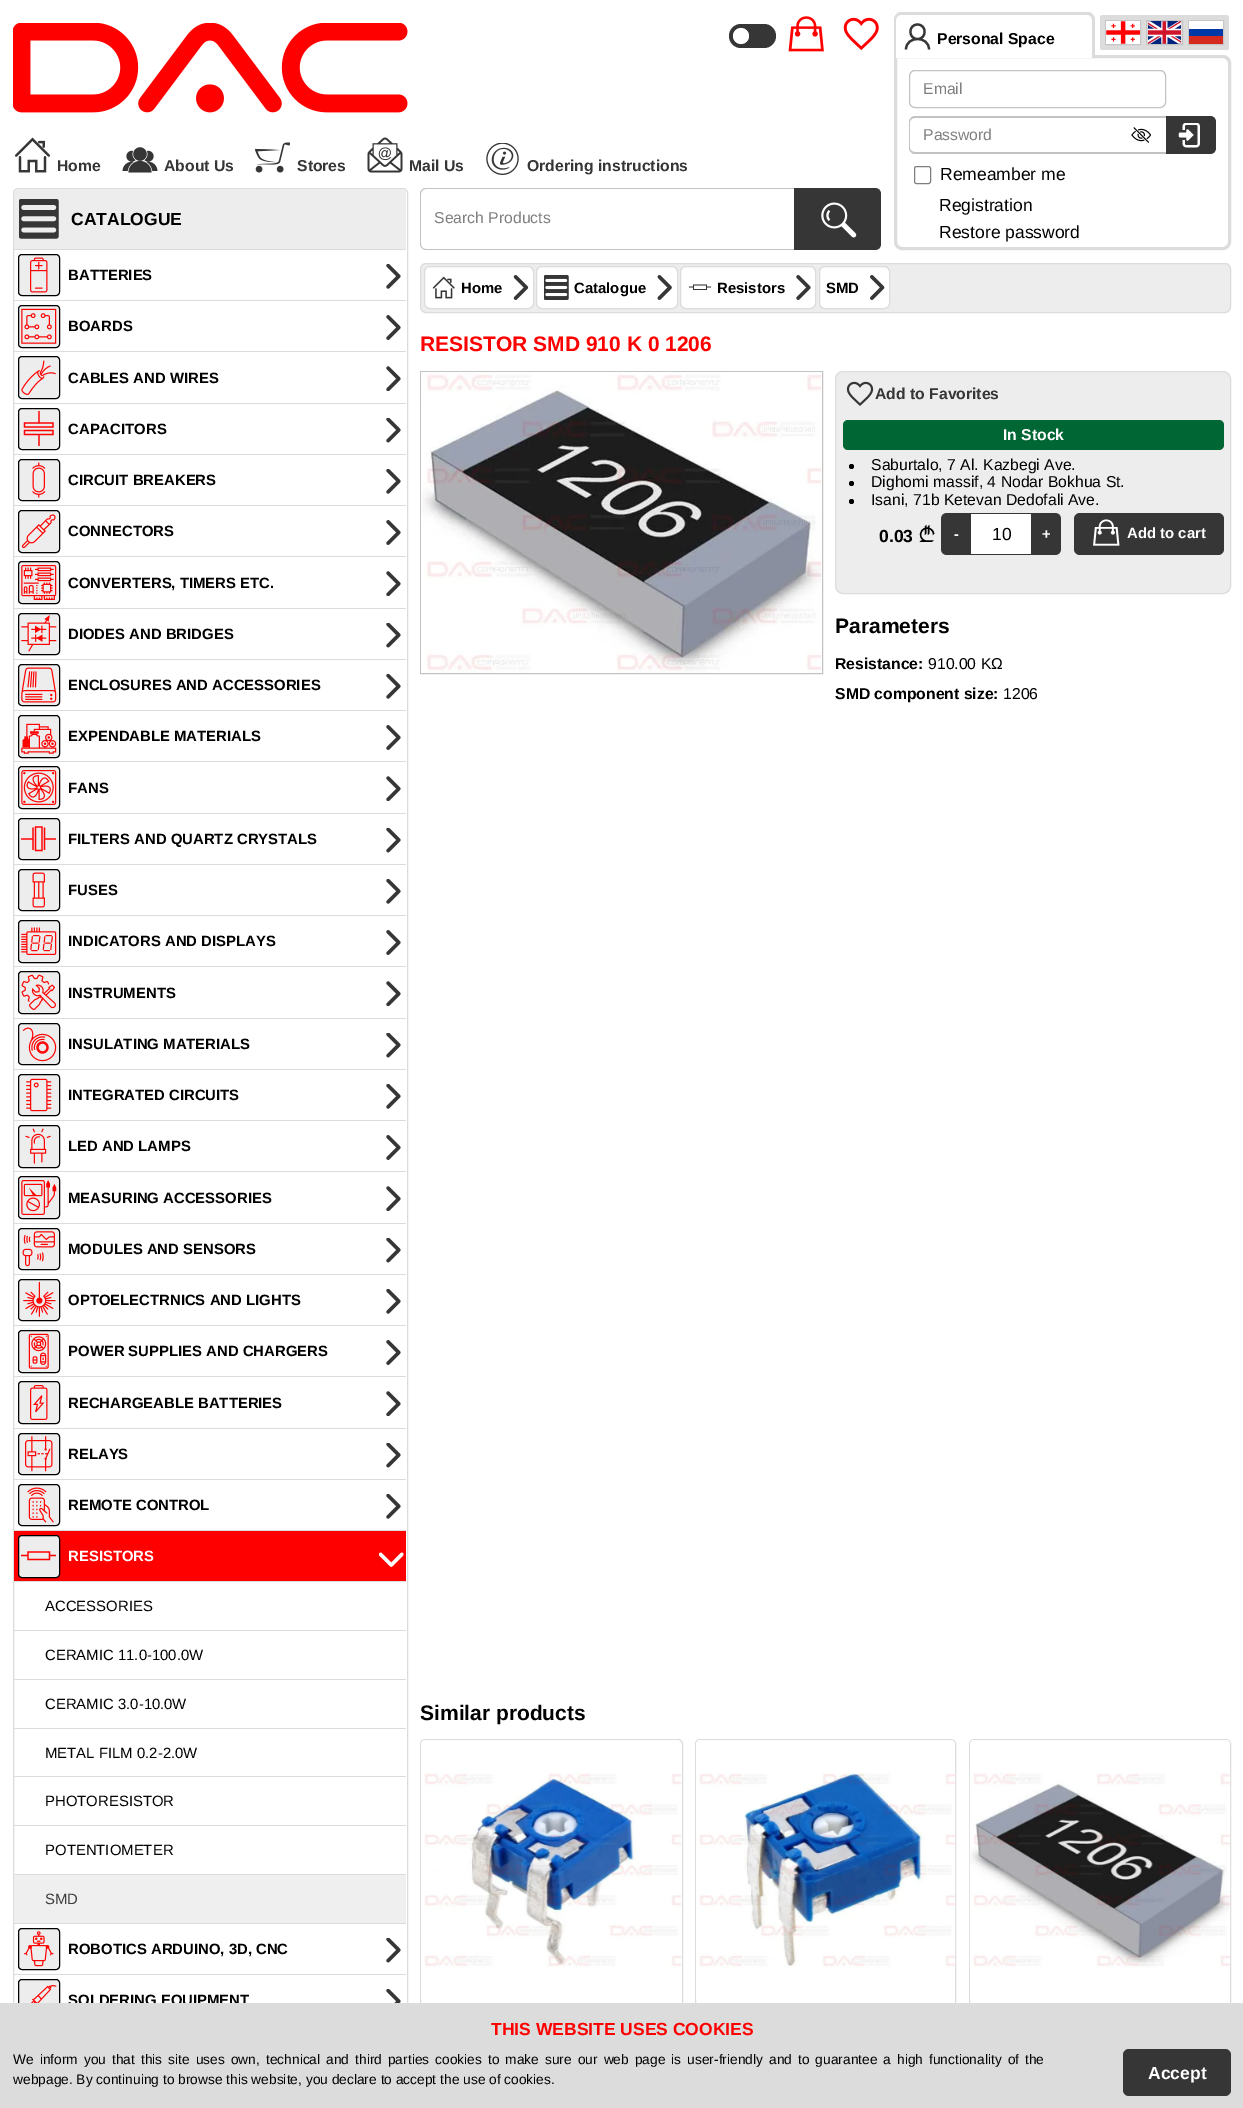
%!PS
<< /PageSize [1243 2108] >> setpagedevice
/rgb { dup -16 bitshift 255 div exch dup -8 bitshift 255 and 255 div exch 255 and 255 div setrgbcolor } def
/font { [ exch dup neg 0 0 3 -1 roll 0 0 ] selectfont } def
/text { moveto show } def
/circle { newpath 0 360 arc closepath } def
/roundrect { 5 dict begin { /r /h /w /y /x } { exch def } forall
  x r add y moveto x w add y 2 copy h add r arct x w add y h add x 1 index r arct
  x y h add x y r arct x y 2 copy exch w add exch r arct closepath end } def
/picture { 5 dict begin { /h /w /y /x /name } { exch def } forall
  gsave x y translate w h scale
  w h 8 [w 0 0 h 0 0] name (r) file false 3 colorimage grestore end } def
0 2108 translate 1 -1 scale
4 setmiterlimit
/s1 { /LiberationSans-Bold 15.75 font 16#363636 rgb } def
/s2 { /LiberationSans-Regular 15.75 font 16#7F7F7F rgb } def
/s3 { /LiberationSans-Bold 15.75 font 16#000000 rgb } def
/s4 { /LiberationSans-Regular 17.5 font 16#000000 rgb } def
/s5 { /LiberationSans-Bold 17.5 font 16#000000 rgb } def
/s6 { /LiberationSans-Bold 14.9 font 16#000000 rgb } def
/s7 { /LiberationSans-Bold 14.9 font 16#FFFFFF rgb } def
/s8 { /LiberationSans-Regular 14.9 font 16#000000 rgb } def
/s9 { /LiberationSans-Regular 14.9 font 16#3F3F3F rgb } def
/s10 { /LiberationSans-Bold 21 font 16#FF0000 rgb } def
/s11 { /LiberationSans-Bold 15.75 font 16#FFFFFF rgb } def
/s12 { /LiberationSans-Regular 15.75 font 16#000000 rgb } def
/s13 { /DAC-Bold 19 font 16#000000 rgb } def
/s14 { /LiberationSans-Bold 21 font 16#000000 rgb } def
/s15 { /LiberationSans-Bold 17.5 font 16#FF0000 rgb } def
/s16 { /LiberationSans-Regular 13.75 font 16#000000 rgb } def
/s17 { /LiberationSans-Bold 17.5 font 16#FFFFFF rgb } def
16#FFFFFF rgb
0 0 1243 2108 rectfill
(pic1.raw) 13 23 395 90 picture
16#363636 rgb
729 24 47 24 12 roundrect fill
16#FFFFFF rgb
741 36 8 circle fill
(pic2.raw) 788 16 36 36 picture
(pic3.raw) 843 17 36 34 picture
16#DCDCDC rgb
1100 15 129 35 2.5 roundrect fill
16#C6C6C6 rgb
1105.5 20.5 35 24 rectstroke
(pic4.raw) 1106 21 34 23 picture
1146.5 20.5 36 24 rectstroke
(pic5.raw) 1148 21 33 23 picture
1188.5 20.5 35 24 rectstroke
16#FFFFFF rgb
1189 21 34 8 rectfill
16#0039A6 rgb
1189 29 34 7 rectfill
16#D52B1E rgb
1189 36 34 8 rectfill
(pic6.raw) 15 137 35 36 picture
s1
(Home) 57 171 text
(pic7.raw) 122 147 36 26 picture
(About Us) 164 171 text
(pic8.raw) 255 142 35 31 picture
(Stores) 297 171 text
(pic9.raw) 367 137 36 36 picture
(Mail Us) 409 171 text
(pic10.raw) 486 143 33 32 picture
(Ordering instructions) 527 171 text
s2
(Search Products) 434 223 text
16#C3C3C3 rgb
426 188 moveto 794 188 lineto 794 250 lineto 426 250 lineto 423 250 420 247 420 244 curveto 420 194 lineto 420 190 423 188 426 188 curveto closepath 426 189 moveto 794 189 lineto 794 249 lineto 426 249 lineto 423 249 421 247 421 244 curveto 421 194 lineto 421 191 423 189 426 189 curveto closepath eofill
16#363636 rgb
794 188 moveto 875 188 lineto 878.5 188 881 190.5 881 194 curveto 881 244 lineto 881 247.5 878.5 250 875 250 curveto 794 250 lineto closepath fill
(pic11.raw) 821 202 36 36 picture
16#DCDCDC rgb
3 setlinewidth
895.5 56.5 moveto 1223 56.5 lineto 1226.5 56.5 1229.5 59.5 1229.5 63 curveto 1229.5 242 lineto 1229.5 245.5 1226.5 248.5 1223 248.5 curveto 902 248.5 lineto 898.5 248.5 895.5 245.5 895.5 242 curveto closepath stroke
16#FFFFFF rgb
902 13 moveto 1087 13 lineto 1091.5 13 1095 16.5 1095 21 curveto 1095 58 lineto 894 58 lineto 894 21 lineto 894 16.5 897.5 13 902 13 curveto closepath fill
16#DCDCDC rgb
901 12 moveto 1088 12 lineto 1092 12 1095 16 1095 20 curveto 1095 58 lineto 894 58 lineto 894 20 lineto 894 16 897 12 901 12 curveto closepath 901 15 moveto 1088 15 lineto 1090 15 1092 17 1092 20 curveto 1092 58 lineto 896 58 lineto 896 20 lineto 896 17 898 15 901 15 curveto closepath eofill
16#363636 rgb
2.2 setlinewidth
906 49.5 moveto 906 35.5 929 35.5 929 49.5 curveto 917.5 24.5 moveto 927 24.5 927 39 917.5 39 curveto 908 39 908 24.5 917.5 24.5 curveto closepath stroke
s3
(Personal Space) 937 44 text
16#C3C3C3 rgb
1 setlinewidth
909.5 70.5 256 37 5.5 roundrect stroke
s2
(Email) 923 94 text
(Password) 923 140 text
16#C3C3C3 rgb
915 116 moveto 1166 116 lineto 1166 154 lineto 915 154 lineto 912 154 909 151 909 148 curveto 909 122 lineto 909 119 912 116 915 116 curveto closepath 915 118 moveto 1166 118 lineto 1166 152 lineto 915 152 lineto 912 152 910 150 910 148 curveto 910 122 lineto 910 120 912 118 915 118 curveto closepath eofill
(pic12.raw) 1131 127 20 16 picture
16#363636 rgb
1166 116 moveto 1210 116 lineto 1213.5 116 1216 118.5 1216 122 curveto 1216 148 lineto 1216 151.5 1213.5 154 1210 154 curveto 1166 154 lineto closepath fill
(pic13.raw) 1178 123 22 25 picture
16#7F7F7F rgb
914.5 166.5 16 17 2 roundrect stroke
s4
(Remeamber me) 940 180 text
(Registration) 939 211 text
(Restore password) 939 238 text
16#DCDCDC rgb
13.5 188.5 394 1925 4.5 roundrect stroke
16#EDEDED rgb
18 189 moveto 402 189 lineto 404 189 406 191 406 193 curveto 406 250 lineto 14 250 lineto 14 193 lineto 14 191 16 189 18 189 curveto closepath fill
16#DCDCDC rgb
14 249 392 1 rectfill
(pic14.raw) 19 199 40 40 picture
s5
(CATALOGUE) 71 225 text
16#EDEDED rgb
18.5 254.5 41 41 3.5 roundrect gsave fill grestore
16#000000 rgb
stroke
(pic15.raw) 30 257 18 36 picture
s6
(BATTERIES) 68 280 text
(pic16.raw) 386 264 15 25 picture
16#DCDCDC rgb
14 300 392 1 rectfill
16#EDEDED rgb
18.5 305.5 41 42 3.5 roundrect gsave fill grestore
16#000000 rgb
stroke
(pic17.raw) 21 308 36 36 picture
(BOARDS) 68 331 text
(pic18.raw) 386 315 15 25 picture
16#DCDCDC rgb
14 351 392 1 rectfill
16#EDEDED rgb
18.5 356.5 41 42 3.5 roundrect gsave fill grestore
16#000000 rgb
stroke
(pic19.raw) 21 360 35 35 picture
(CABLES AND WIRES) 68 383 text
(pic20.raw) 386 366 15 25 picture
16#DCDCDC rgb
14 403 392 1 rectfill
16#EDEDED rgb
18.5 408.5 41 41 3.5 roundrect gsave fill grestore
16#000000 rgb
stroke
16#FF0000 rgb
1.2 setlinewidth
24.5 423 moveto 24.5 427 lineto 53 427 lineto 53 423 lineto closepath 24.5 434.5 moveto 53 434.5 lineto 53 430.5 lineto 24.5 430.5 lineto closepath 39 423 moveto 39 411 lineto 39 434.5 moveto 39 446 lineto stroke
s6
(CAPACITORS) 68 434 text
(pic21.raw) 386 418 15 25 picture
16#DCDCDC rgb
14 454 392 1 rectfill
16#EDEDED rgb
18.5 459.5 41 41 3.5 roundrect gsave fill grestore
16#000000 rgb
1 setlinewidth
stroke
(pic22.raw) 32 462 14 36 picture
(CIRCUIT BREAKERS) 68 485 text
(pic16.raw) 386 469 15 25 picture
16#DCDCDC rgb
14 505 392 1 rectfill
16#EDEDED rgb
18.5 510.5 41 42 3.5 roundrect gsave fill grestore
16#000000 rgb
stroke
(pic23.raw) 21 514 35 35 picture
(CONNECTORS) 68 536 text
(pic18.raw) 386 520 15 25 picture
16#DCDCDC rgb
14 556 392 1 rectfill
16#EDEDED rgb
18.5 561.5 41 42 3.5 roundrect gsave fill grestore
16#000000 rgb
stroke
(pic24.raw) 21 565 36 35 picture
(CONVERTERS, TIMERS ETC.) 68 588 text
(pic20.raw) 386 571 15 25 picture
16#DCDCDC rgb
14 608 392 1 rectfill
16#EDEDED rgb
18.5 613.5 41 41 3.5 roundrect gsave fill grestore
16#000000 rgb
stroke
(pic25.raw) 21 615 36 37 picture
(DIODES AND BRIDGES) 68 639 text
(pic21.raw) 386 623 15 25 picture
16#DCDCDC rgb
14 659 392 1 rectfill
16#EDEDED rgb
18.5 664.5 41 41 3.5 roundrect gsave fill grestore
16#000000 rgb
stroke
(pic26.raw) 21 667 36 36 picture
(ENCLOSURES AND ACCESSORIES) 68 690 text
(pic16.raw) 386 674 15 25 picture
16#DCDCDC rgb
14 710 392 1 rectfill
16#EDEDED rgb
18.5 715.5 41 42 3.5 roundrect gsave fill grestore
16#000000 rgb
stroke
(pic27.raw) 21 723 36 31 picture
(EXPENDABLE MATERIALS) 68 741 text
(pic18.raw) 386 725 15 25 picture
16#DCDCDC rgb
14 761 392 1 rectfill
16#EDEDED rgb
18.5 766.5 41 42 3.5 roundrect gsave fill grestore
16#000000 rgb
stroke
(pic28.raw) 21 770 36 35 picture
(FANS) 68 793 text
(pic20.raw) 386 776 15 25 picture
16#DCDCDC rgb
14 813 392 1 rectfill
16#EDEDED rgb
18.5 818.5 41 41 3.5 roundrect gsave fill grestore
16#000000 rgb
stroke
16#FF0000 rgb
1.2 setlinewidth
35.5 827 moveto 42 827 lineto 42 850.5 lineto 35.5 850.5 lineto closepath 21 839 moveto 33 839 lineto 56 839 moveto 44.5 839 lineto 44.5 827.5 moveto 44.5 850 lineto 33 827.5 moveto 33 850 lineto stroke
s6
(FILTERS AND QUARTZ CRYSTALS) 68 844 text
(pic21.raw) 386 828 15 25 picture
16#DCDCDC rgb
14 864 392 1 rectfill
16#EDEDED rgb
18.5 869.5 41 41 3.5 roundrect gsave fill grestore
16#000000 rgb
1 setlinewidth
stroke
(pic29.raw) 32 872 13 36 picture
(FUSES) 68 895 text
(pic16.raw) 386 879 15 25 picture
16#DCDCDC rgb
14 915 392 1 rectfill
16#EDEDED rgb
18.5 920.5 41 42 3.5 roundrect gsave fill grestore
16#000000 rgb
stroke
(pic30.raw) 21 927 36 28 picture
(INDICATORS AND DISPLAYS) 68 946 text
(pic18.raw) 386 930 15 25 picture
16#DCDCDC rgb
14 966 392 1 rectfill
16#EDEDED rgb
18.5 971.5 41 42 3.5 roundrect gsave fill grestore
16#000000 rgb
stroke
(pic31.raw) 21 974 35 36 picture
(INSTRUMENTS) 68 998 text
(pic20.raw) 386 981 15 25 picture
16#DCDCDC rgb
14 1018 392 1 rectfill
16#EDEDED rgb
18.5 1023.5 41 41 3.5 roundrect gsave fill grestore
16#000000 rgb
stroke
(pic32.raw) 22 1027 35 35 picture
(INSULATING MATERIALS) 68 1049 text
(pic21.raw) 386 1033 15 25 picture
16#DCDCDC rgb
14 1069 392 1 rectfill
16#EDEDED rgb
18.5 1074.5 41 41 3.5 roundrect gsave fill grestore
16#000000 rgb
stroke
(pic33.raw) 26 1078 26 34 picture
(INTEGRATED CIRCUITS) 68 1100 text
(pic16.raw) 386 1084 15 25 picture
16#DCDCDC rgb
14 1120 392 1 rectfill
16#EDEDED rgb
18.5 1125.5 41 42 3.5 roundrect gsave fill grestore
16#000000 rgb
stroke
(pic34.raw) 25 1128 26 36 picture
(LED AND LAMPS) 68 1151 text
(pic18.raw) 386 1135 15 25 picture
16#DCDCDC rgb
14 1171 392 1 rectfill
16#EDEDED rgb
18.5 1176.5 41 42 3.5 roundrect gsave fill grestore
16#000000 rgb
stroke
(pic35.raw) 21 1180 36 35 picture
(MEASURING ACCESSORIES) 68 1203 text
(pic20.raw) 386 1186 15 25 picture
16#DCDCDC rgb
14 1223 392 1 rectfill
16#EDEDED rgb
18.5 1228.5 41 41 3.5 roundrect gsave fill grestore
16#000000 rgb
stroke
(pic36.raw) 22 1231 33 36 picture
(MODULES AND SENSORS) 68 1254 text
(pic21.raw) 386 1238 15 25 picture
16#DCDCDC rgb
14 1274 392 1 rectfill
16#EDEDED rgb
18.5 1279.5 41 41 3.5 roundrect gsave fill grestore
16#000000 rgb
stroke
(pic37.raw) 23 1281 33 36 picture
(OPTOELECTRNICS AND LIGHTS) 68 1305 text
(pic16.raw) 386 1289 15 25 picture
16#DCDCDC rgb
14 1325 392 1 rectfill
16#EDEDED rgb
18.5 1330.5 41 42 3.5 roundrect gsave fill grestore
16#000000 rgb
stroke
(pic38.raw) 28 1333 21 36 picture
(POWER SUPPLIES AND CHARGERS) 68 1356 text
(pic18.raw) 386 1340 15 25 picture
16#DCDCDC rgb
14 1376 392 1 rectfill
16#EDEDED rgb
18.5 1381.5 41 42 3.5 roundrect gsave fill grestore
16#000000 rgb
stroke
(pic39.raw) 30 1385 18 35 picture
(RECHARGEABLE BATTERIES) 68 1408 text
(pic20.raw) 386 1391 15 25 picture
16#DCDCDC rgb
14 1428 392 1 rectfill
16#EDEDED rgb
18.5 1433.5 41 41 3.5 roundrect gsave fill grestore
16#000000 rgb
stroke
(pic40.raw) 25 1436 28 36 picture
(RELAYS) 68 1459 text
(pic21.raw) 386 1443 15 25 picture
16#DCDCDC rgb
14 1479 392 1 rectfill
16#EDEDED rgb
18.5 1484.5 41 41 3.5 roundrect gsave fill grestore
16#000000 rgb
stroke
(pic41.raw) 27 1487 27 36 picture
(REMOTE CONTROL) 68 1510 text
(pic16.raw) 386 1494 15 25 picture
16#FF0000 rgb
14 1531 392 50 rectfill
16#DCDCDC rgb
14 1530 392 1 rectfill
16#EDEDED rgb
18.5 1535.5 41 42 3.5 roundrect gsave fill grestore
16#000000 rgb
stroke
16#FF0000 rgb
1.2 setlinewidth
21 1555.5 moveto 28 1555.5 lineto 49.5 1555.5 moveto 56 1555.5 lineto 28 1552 moveto 49.5 1552 lineto 49.5 1559.5 lineto 28 1559.5 lineto closepath stroke
s7
(RESISTORS) 68 1561 text
(pic42.raw) 378 1552 26 15 picture
16#DCDCDC rgb
14 1581 392 1 rectfill
s8
(ACCESSORIES) 45 1611 text
16#DCDCDC rgb
14 1630 392 1 rectfill
s8
(CERAMIC 11.0-100.0W) 45 1660 text
16#DCDCDC rgb
14 1679 392 1 rectfill
s8
(CERAMIC 3.0-10.0W) 45 1709 text
16#DCDCDC rgb
14 1728 392 1 rectfill
s8
(METAL FILM 0.2-2.0W) 45 1758 text
16#DCDCDC rgb
14 1776 392 1 rectfill
s8
(PHOTORESISTOR) 45 1806 text
16#DCDCDC rgb
14 1825 392 1 rectfill
s8
(POTENTIOMETER) 45 1855 text
16#EFEFEF rgb
14 1875 392 48 rectfill
16#DCDCDC rgb
14 1874 392 1 rectfill
s9
(SMD) 45 1904 text
16#DCDCDC rgb
14 1923 392 1 rectfill
16#EDEDED rgb
18.5 1928.5 41 41 3.5 roundrect gsave fill grestore
16#000000 rgb
1 setlinewidth
stroke
(pic43.raw) 23 1931 31 36 picture
s6
(ROBOTICS ARDUINO, 3D, CNC) 68 1954 text
(pic21.raw) 386 1938 15 25 picture
16#DCDCDC rgb
14 1974 392 1 rectfill
16#EDEDED rgb
18.5 1979.5 41 41 3.5 roundrect gsave fill grestore
16#000000 rgb
stroke
(pic44.raw) 31 1985 26 18 picture
(SOLDERING EQUIPMENT) 68 2005 text
(pic45.raw) 386 1989 15 14 picture
16#EDEDED rgb
420.5 263.5 810 49 5.5 roundrect gsave fill grestore
16#DCDCDC rgb
stroke
16#FFFFFF rgb
424.5 266.5 109 42 5.5 roundrect gsave fill grestore
16#DCDCDC rgb
stroke
(pic46.raw) 432 276 23 23 picture
s6
(Home) 461 293 text
(pic47.raw) 513 275 16 25 picture
16#FFFFFF rgb
536.5 266.5 141 42 5.5 roundrect gsave fill grestore
16#DCDCDC rgb
stroke
(pic48.raw) 544 275 25 25 picture
s6
(Catalogue) 574 293 text
(pic49.raw) 657 275 15 25 picture
16#FFFFFF rgb
680.5 266.5 135 42 5.5 roundrect gsave fill grestore
16#DCDCDC rgb
stroke
16#363636 rgb
0.8 setlinewidth
689 287 moveto 693.5 287 lineto 706.5 287 moveto 711 287 lineto 693.5 285 moveto 706.5 285 lineto 706.5 289.5 lineto 693.5 289.5 lineto closepath stroke
s6
(Resistors) 717 293 text
(pic18.raw) 796 275 15 25 picture
16#FFFFFF rgb
819.5 266.5 70 42 5.5 roundrect gsave fill grestore
16#DCDCDC rgb
1 setlinewidth
stroke
s6
(SMD) 826 293 text
(pic50.raw) 870 275 15 25 picture
s10
(RESISTOR SMD 910 K 0 1206) 420 351 text
16#C3C3C3 rgb
420.5 371.5 402 302 rectstroke
(pic51.raw) 421 372 401 301 picture
16#EDEDED rgb
835.5 371.5 395 222 7.5 roundrect gsave fill grestore
16#DCDCDC rgb
stroke
(pic52.raw) 846 381 28 25 picture
s1
(Add to Favorites) 875 399 text
16#006633 rgb
843 420 381 30 5 roundrect fill
s11
(In Stock) 1003 440 text
16#000000 rgb
851.5 466.5 2.5 circle fill
s12
(Saburtalo, 7 Al. Kazbegi Ave.) 871 470 text
851.5 483.5 2.5 circle fill
(Dighomi massif, 4 Nodar Bokhua St.) 871 487 text
851.5 501.5 2.5 circle fill
(Isani, 71b Ketevan Dedofali Ave.) 871 505 text
s5
(0.03) 879 542 text
s13
(₾) 918 542 text
16#363636 rgb
947 513 moveto 971 513 lineto 971 555 lineto 947 555 lineto 943.5 555 941 552.5 941 549 curveto 941 519 lineto 941 515.5 943.5 513 947 513 curveto closepath fill
s7
(-) 954 539 text
971 514 60 40 rectfill
16#363636 rgb
971 513 60 1 rectfill
971 554 60 1 rectfill
s4
(10) 992 540 text
16#363636 rgb
1031 513 moveto 1055 513 lineto 1058.5 513 1061 515.5 1061 519 curveto 1061 549 lineto 1061 552.5 1058.5 555 1055 555 curveto 1031 555 lineto closepath fill
s7
(+) 1042 539 text
16#363636 rgb
1074 513 150 42 6 roundrect fill
(pic53.raw) 1093 519 27 27 picture
s7
(Add to cart) 1127 538 text
s14
(Parameters) 835 633 text
s3
(Resistance:) 835 669 text
s12
(910.00 KΩ) 928 669 text
s3
(SMD component size:) 835 699 text
s12
(1206) 1003 699 text
s14
(Similar products) 420 1720 text
16#DCDCDC rgb
420.5 1739.5 262 356 4.5 roundrect stroke
16#FFFFFF rgb
425 1740 moveto 677 1740 lineto 679 1740 681 1742 681 1744 curveto 681 2000 lineto 421 2000 lineto 421 1744 lineto 421 1742 423 1740 425 1740 curveto closepath fill
(pic54.raw) 424 1772 258 196 picture
16#DCDCDC rgb
695.5 1739.5 260 356 4.5 roundrect stroke
16#FFFFFF rgb
700 1740 moveto 951 1740 lineto 953 1740 955 1742 955 1744 curveto 955 2000 lineto 696 2000 lineto 696 1744 lineto 696 1742 698 1740 700 1740 curveto closepath fill
(pic55.raw) 699 1772 257 196 picture
16#DCDCDC rgb
969.5 1739.5 261 356 4.5 roundrect stroke
16#FFFFFF rgb
974 1740 moveto 1226 1740 lineto 1228 1740 1230 1742 1230 1744 curveto 1230 2000 lineto 970 2000 lineto 970 1744 lineto 970 1742 972 1740 974 1740 curveto closepath fill
(pic56.raw) 969 1772 262 196 picture
16#DCDCDC rgb
0 2003 1243 105 rectfill
s15
(THIS WEBSITE USES COOKIES) 491 2035 text
/LiberationSans-Regular 13.75 font
16#000000 rgb
13 2064 moveto 2.2 0 32 (We inform you that this site uses own, technical and third parties cookies to make sure our web page is user-friendly and to guarantee a high functionality of the) widthshow
(webpage. By continuing to browse this website, you declare to accept the use of cookies.) 13 2084 text
16#363636 rgb
1123 2049 108 47 6 roundrect fill
s17
(Accept) 1148 2079 text
showpage
